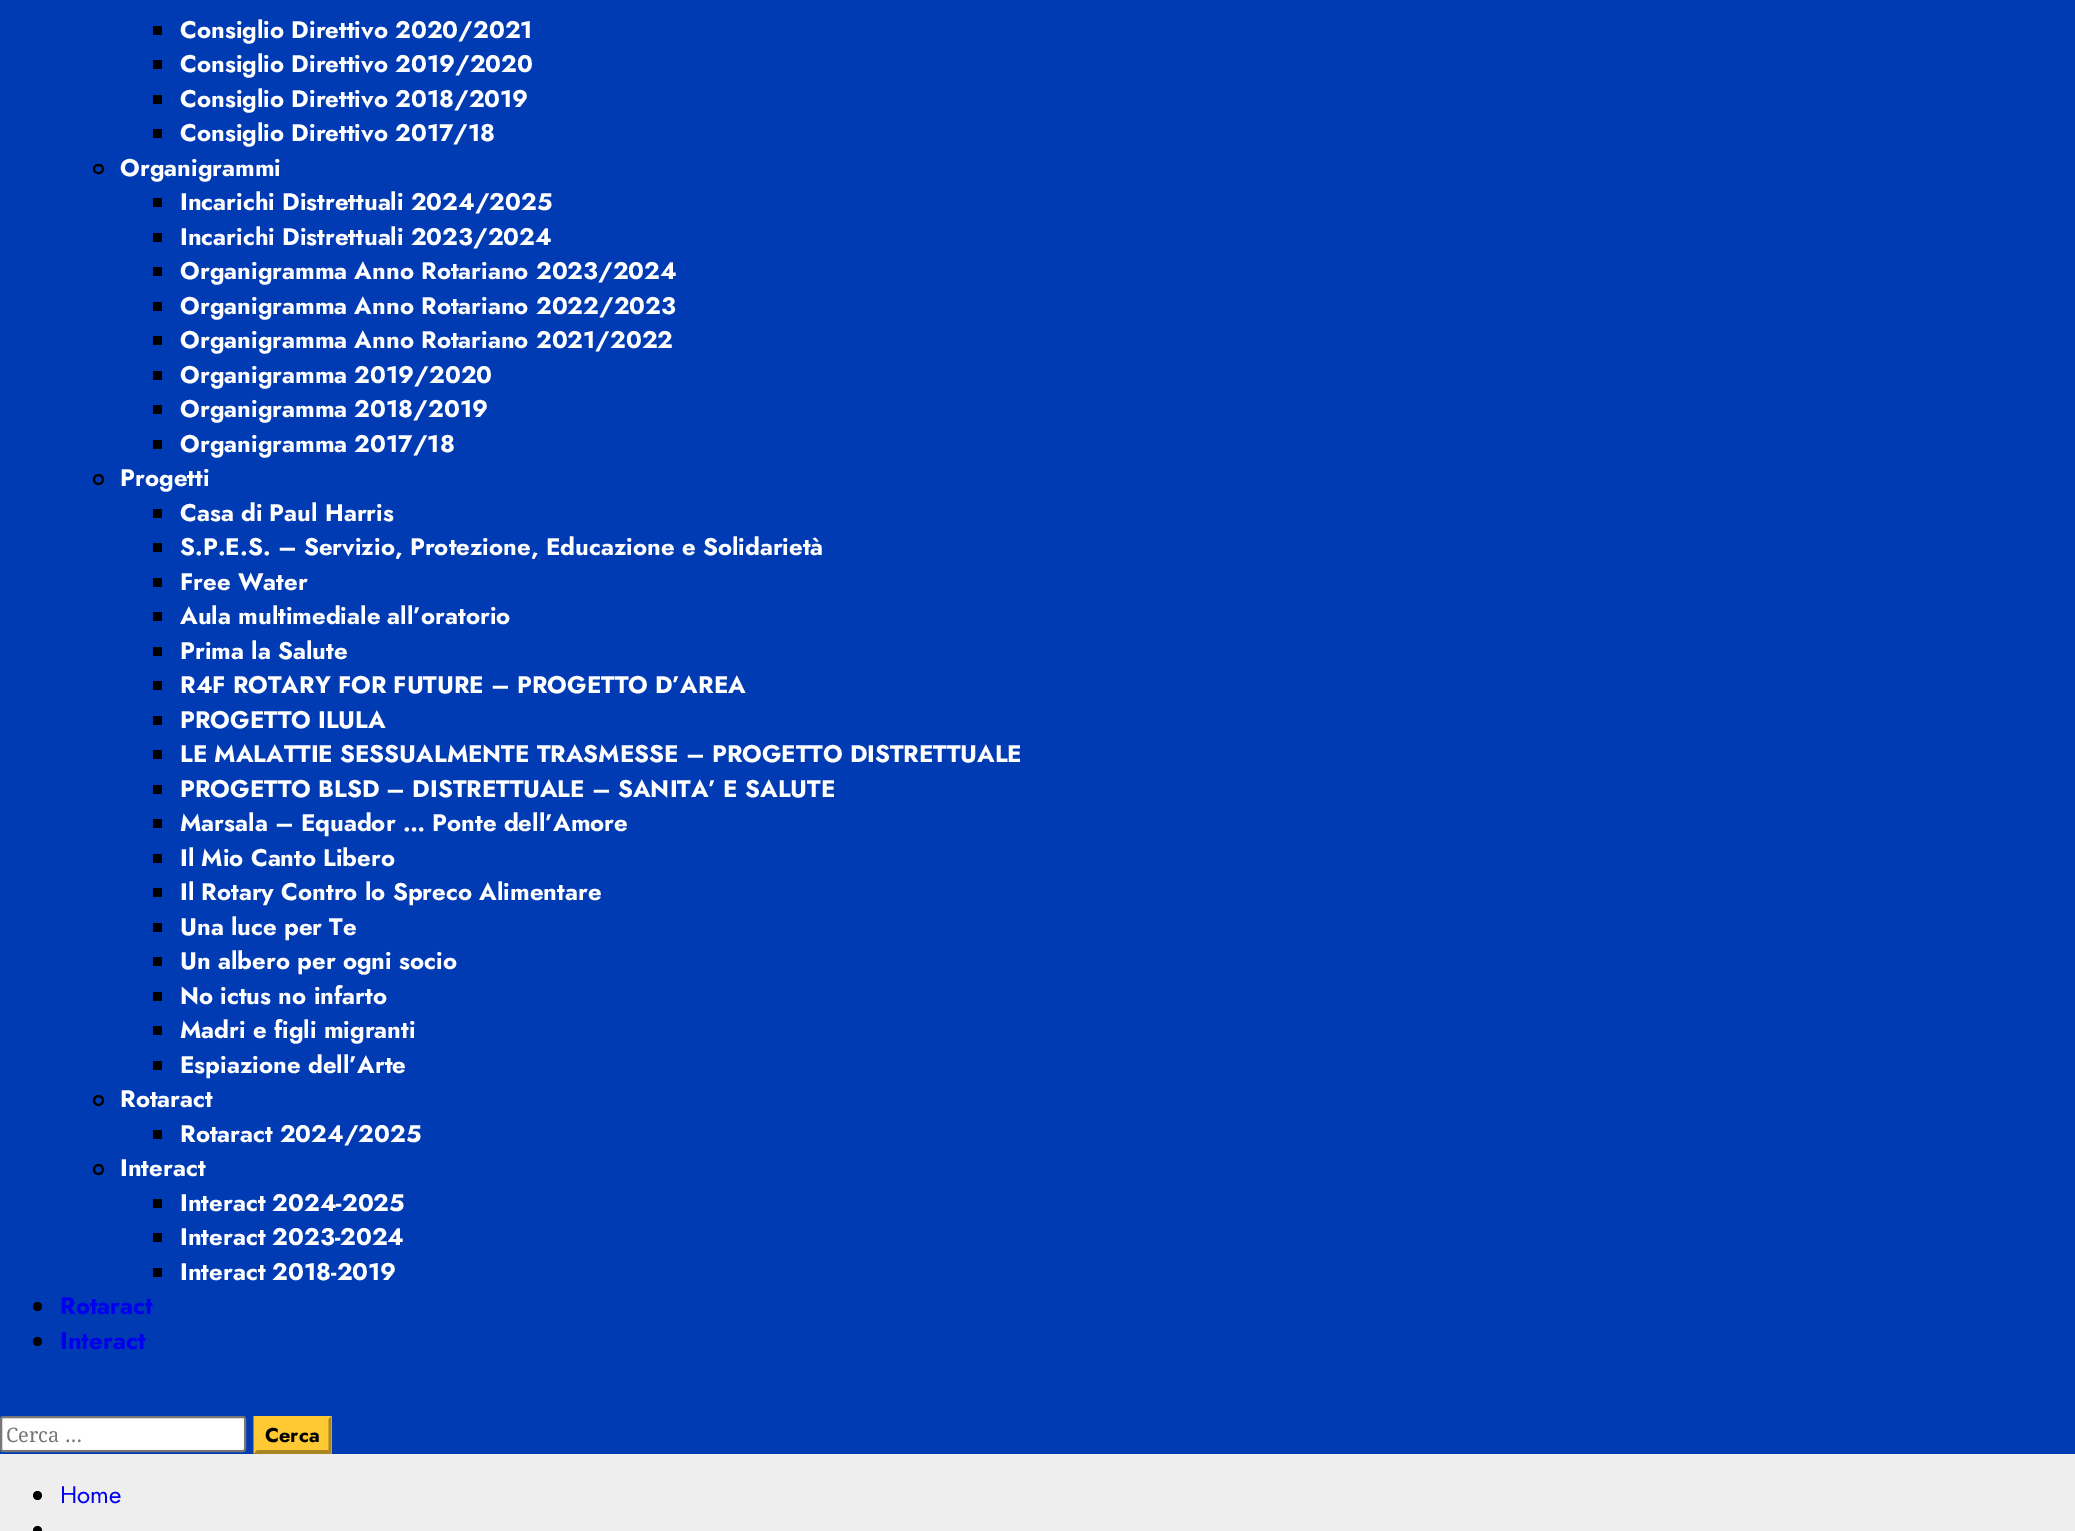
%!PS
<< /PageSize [2075 1531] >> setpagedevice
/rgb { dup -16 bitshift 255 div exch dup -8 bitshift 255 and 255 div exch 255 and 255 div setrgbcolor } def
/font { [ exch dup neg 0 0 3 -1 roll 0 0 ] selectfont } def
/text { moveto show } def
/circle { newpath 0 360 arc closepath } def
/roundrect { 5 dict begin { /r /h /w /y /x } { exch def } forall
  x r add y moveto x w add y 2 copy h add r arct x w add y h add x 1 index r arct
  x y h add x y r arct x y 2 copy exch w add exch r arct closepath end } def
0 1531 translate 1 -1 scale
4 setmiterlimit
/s1 { /Jost-Bold 24 font 16#FFFFFF rgb } def
/s2 { /Jost-Bold 24 font 16#0000EE rgb } def
/s3 { /NotoSerif-Regular 20 font 16#757575 rgb } def
/s4 { /Jost-Bold 20 font 16#000000 rgb } def
/s5 { /Jost-Regular 24 font 16#0000EE rgb } def
16#EEEEEE rgb
0 0 2075 1531 rectfill
16#003BB3 rgb
0 0 2075 1454 rectfill
16#000000 rgb
153 26 9 9 rectfill
s1
(Consiglio Direttivo 2020/2021) 180 38 text
16#000000 rgb
153 60 9 9 rectfill
s1
(Consiglio Direttivo 2019/2020) 180 72 text
16#000000 rgb
153 95 9 9 rectfill
s1
(Consiglio Direttivo 2018/2019) 180 107 text
16#000000 rgb
153 129 9 9 rectfill
s1
(Consiglio Direttivo 2017/18) 180 141 text
16#000000 rgb
2 setlinewidth
94 165 9 8 4 roundrect stroke
s1
(Organigrammi) 120 176 text
16#000000 rgb
153 198 9 9 rectfill
s1
(Incarichi Distrettuali 2024/2025) 180 210 text
16#000000 rgb
153 233 9 9 rectfill
s1
(Incarichi Distrettuali 2023/2024) 180 245 text
16#000000 rgb
153 267 9 9 rectfill
s1
(Organigramma Anno Rotariano 2023/2024) 180 279 text
16#000000 rgb
153 302 9 9 rectfill
s1
(Organigramma Anno Rotariano 2022/2023) 180 314 text
16#000000 rgb
153 336 9 9 rectfill
s1
(Organigramma Anno Rotariano 2021/2022) 180 348 text
16#000000 rgb
153 371 9 9 rectfill
s1
(Organigramma 2019/2020) 180 383 text
16#000000 rgb
153 405 9 9 rectfill
s1
(Organigramma 2018/2019) 180 417 text
16#000000 rgb
153 440 9 9 rectfill
s1
(Organigramma 2017/18) 180 452 text
16#000000 rgb
98.5 479.5 4.5 circle stroke
s1
(Progetti) 120 486 text
16#000000 rgb
153 509 9 9 rectfill
s1
(Casa di Paul Harris) 180 521 text
16#000000 rgb
153 543 9 9 rectfill
s1
(S.P.E.S. – Servizio, Protezione, Educazione e Solidarietà) 180 555 text
16#000000 rgb
153 578 9 9 rectfill
s1
(Free Water) 180 590 text
16#000000 rgb
153 612 9 9 rectfill
s1
(Aula multimediale all’oratorio) 180 624 text
16#000000 rgb
153 647 9 9 rectfill
s1
(Prima la Salute) 180 659 text
16#000000 rgb
153 681 9 9 rectfill
s1
(R4F ROTARY FOR FUTURE – PROGETTO D’AREA) 180 693 text
16#000000 rgb
153 716 9 9 rectfill
s1
(PROGETTO ILULA) 180 728 text
16#000000 rgb
153 750 9 9 rectfill
s1
(LE MALATTIE SESSUALMENTE TRASMESSE – PROGETTO DISTRETTUALE) 180 762 text
16#000000 rgb
153 785 9 9 rectfill
s1
(PROGETTO BLSD – DISTRETTUALE – SANITA’ E SALUTE) 180 797 text
16#000000 rgb
153 819 9 9 rectfill
s1
(Marsala – Equador … Ponte dell’Amore) 180 831 text
16#000000 rgb
153 854 9 9 rectfill
s1
(Il Mio Canto Libero) 180 866 text
16#000000 rgb
153 888 9 9 rectfill
s1
(Il Rotary Contro lo Spreco Alimentare) 180 900 text
16#000000 rgb
153 923 9 9 rectfill
s1
(Una luce per Te) 180 935 text
16#000000 rgb
153 957 9 9 rectfill
s1
(Un albero per ogni socio) 180 969 text
16#000000 rgb
153 992 9 9 rectfill
s1
(No ictus no infarto) 180 1004 text
16#000000 rgb
153 1026 9 9 rectfill
s1
(Madri e figli migranti) 180 1038 text
16#000000 rgb
153 1061 9 9 rectfill
s1
(Espiazione dell’Arte) 180 1073 text
16#000000 rgb
98.5 1100.5 4.5 circle stroke
s1
(Rotaract) 120 1107 text
16#000000 rgb
153 1130 9 9 rectfill
s1
(Rotaract 2024/2025) 180 1142 text
16#000000 rgb
98.5 1169.5 4.5 circle stroke
s1
(Interact) 120 1176 text
16#000000 rgb
153 1199 9 9 rectfill
s1
(Interact 2024-2025) 180 1211 text
16#000000 rgb
153 1233 9 9 rectfill
s1
(Interact 2023-2024) 180 1245 text
16#000000 rgb
153 1268 9 9 rectfill
s1
(Interact 2018-2019) 180 1280 text
16#000000 rgb
37.5 1306.5 4.5 circle fill
s2
(Rotaract) 60 1314 text
16#000000 rgb
37.5 1341.5 4.5 circle fill
s2
(Interact) 60 1349 text
16#FFFFFF rgb
1 1417 244 34 2 roundrect gsave fill grestore
16#767676 rgb
stroke
s3
(Cerca …) 6 1442 text
16#FFC934 rgb
254 1416 78 38 rectfill
16#AA8623 rgb
331.5 1416 moveto 331.5 1453.5 lineto 328.5 1450.5 lineto 328.5 1419 lineto closepath fill
332 1454 moveto 254 1454 lineto 256 1450 lineto 328 1450 lineto closepath fill
16#FFC934 rgb
253.5 1453.5 moveto 253.5 1416 lineto 256.5 1419 lineto 256.5 1450.5 lineto closepath fill
s4
(Cerca) 265 1442 text
37.5 1495.5 4.5 circle fill
s5
(Home) 60 1503 text
16#000000 rgb
37.5 1530.5 4.5 circle fill
showpage
